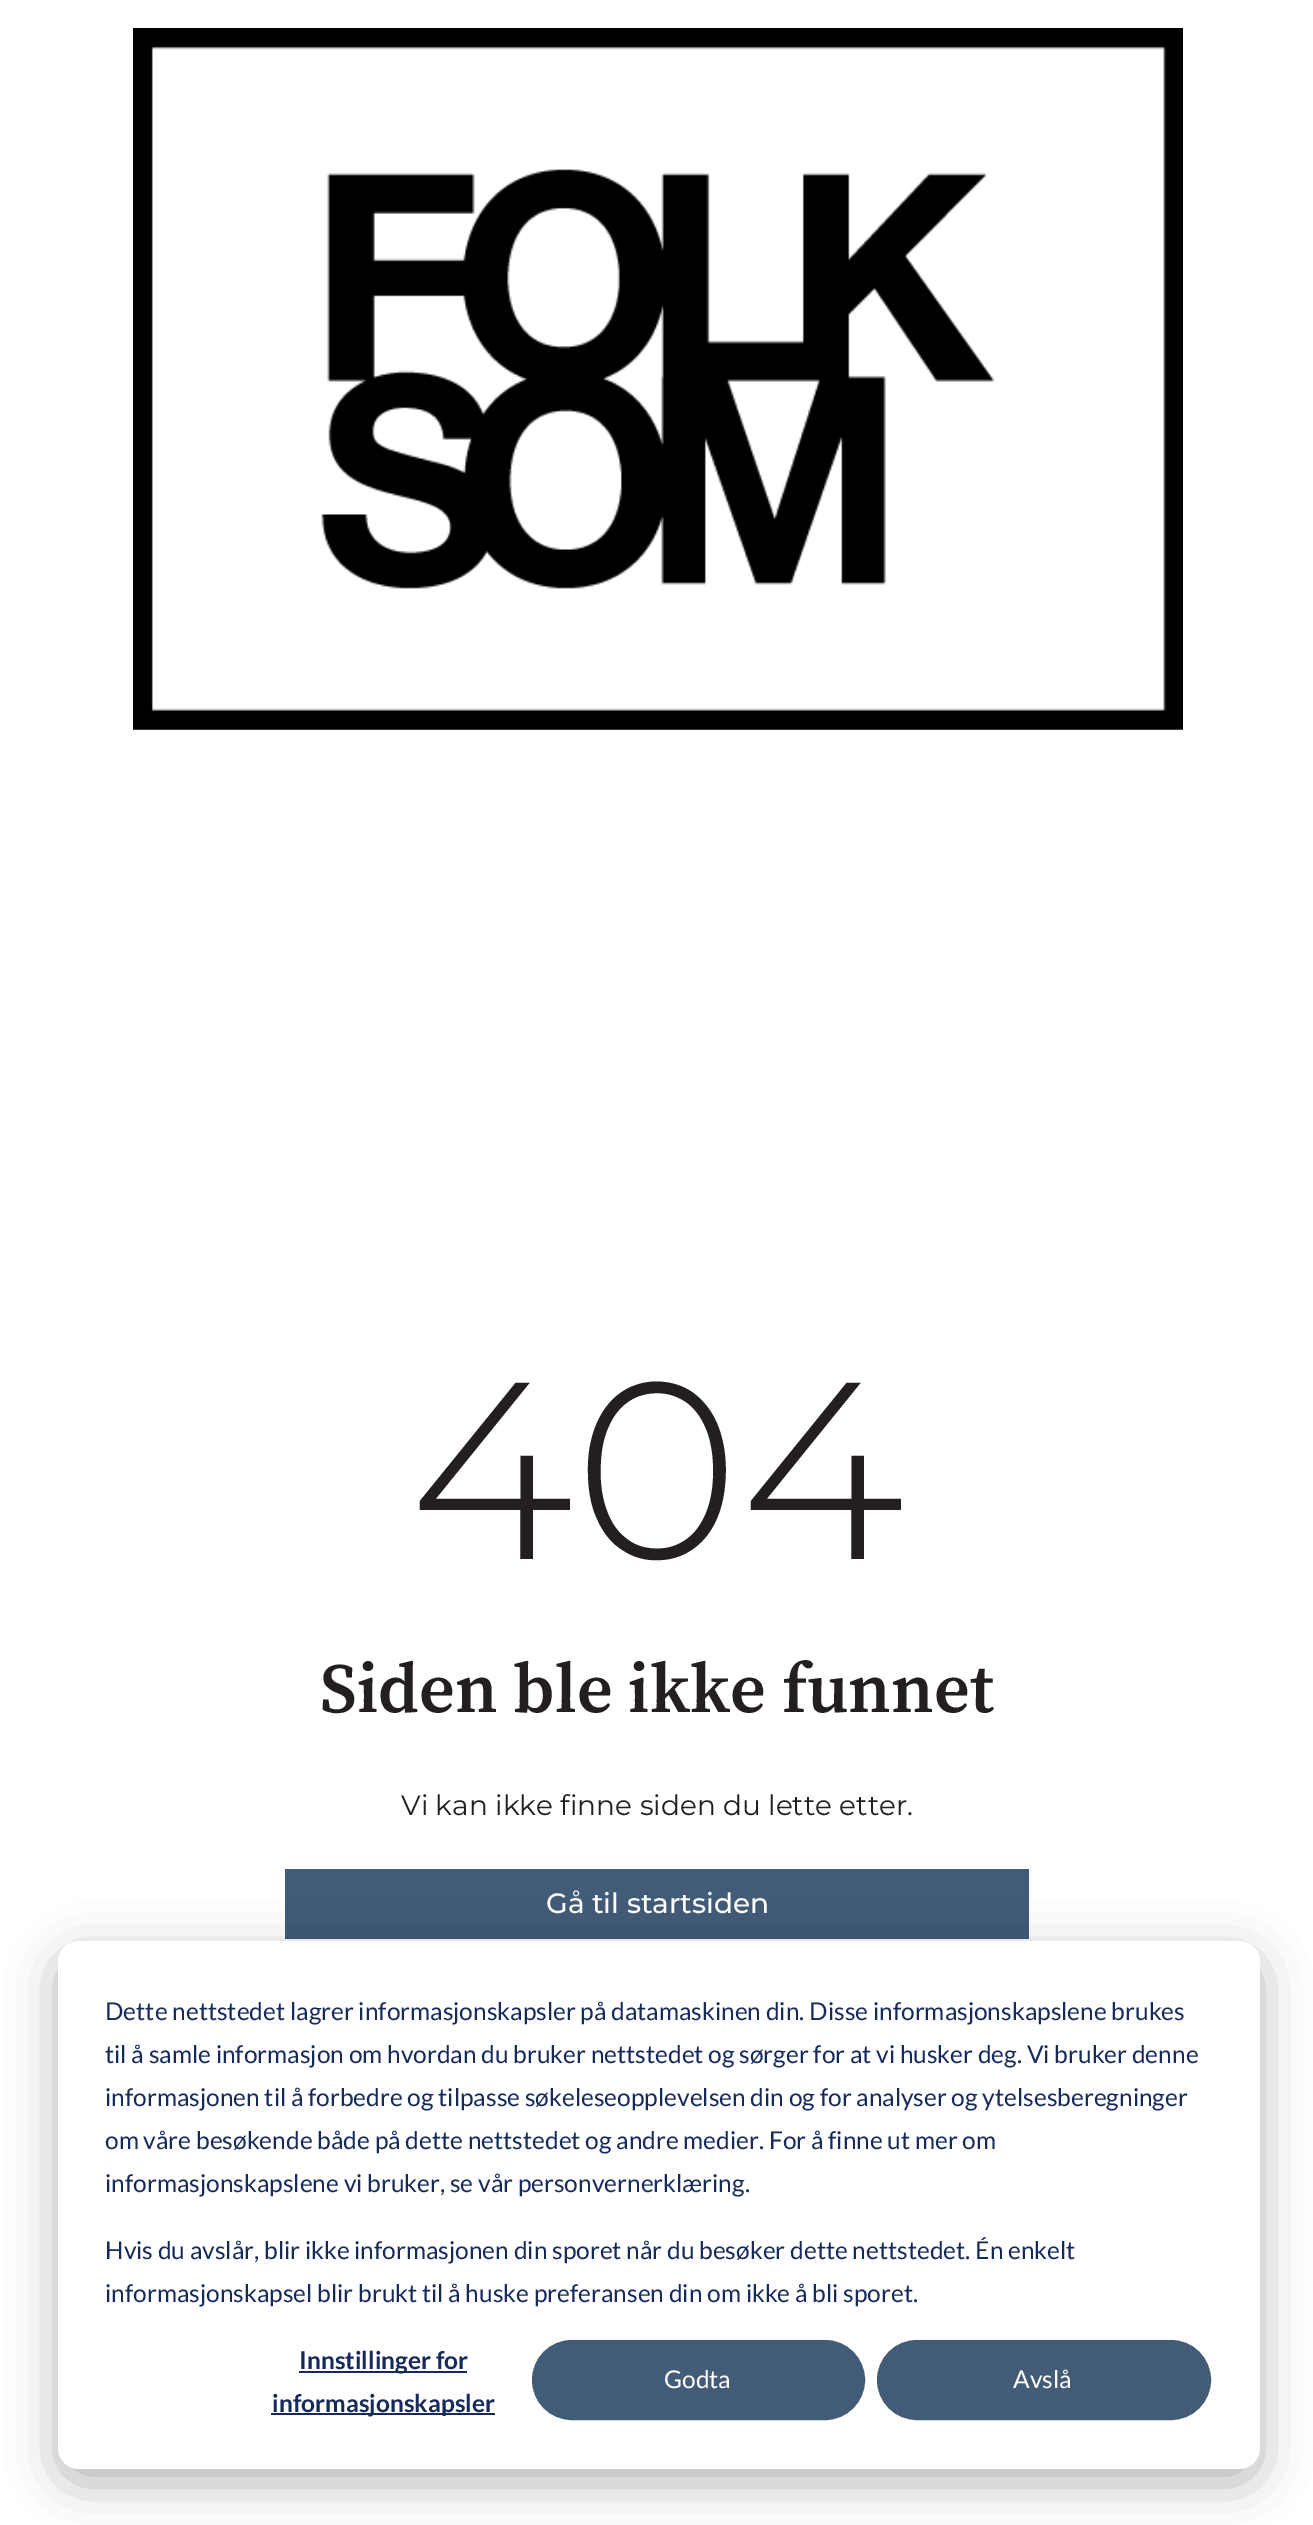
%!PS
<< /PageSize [1313 2525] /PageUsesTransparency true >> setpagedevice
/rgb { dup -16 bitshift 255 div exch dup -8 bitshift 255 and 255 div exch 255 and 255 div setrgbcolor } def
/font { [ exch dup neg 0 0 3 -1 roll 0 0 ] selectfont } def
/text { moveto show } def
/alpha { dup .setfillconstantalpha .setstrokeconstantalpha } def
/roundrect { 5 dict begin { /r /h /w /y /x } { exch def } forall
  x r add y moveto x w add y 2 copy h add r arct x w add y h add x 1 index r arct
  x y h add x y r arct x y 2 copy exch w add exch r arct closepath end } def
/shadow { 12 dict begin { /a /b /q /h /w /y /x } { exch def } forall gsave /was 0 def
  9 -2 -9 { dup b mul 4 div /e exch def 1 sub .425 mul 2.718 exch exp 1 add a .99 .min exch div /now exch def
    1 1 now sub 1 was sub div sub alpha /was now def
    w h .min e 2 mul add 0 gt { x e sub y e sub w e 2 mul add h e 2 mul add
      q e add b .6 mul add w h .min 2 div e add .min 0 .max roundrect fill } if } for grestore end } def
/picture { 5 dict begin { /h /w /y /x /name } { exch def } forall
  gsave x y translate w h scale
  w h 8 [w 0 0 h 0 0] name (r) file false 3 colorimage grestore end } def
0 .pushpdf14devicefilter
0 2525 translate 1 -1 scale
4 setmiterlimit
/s1 { /Montserrat-Light 252 font 16#231F20 rgb } def
/s2 { /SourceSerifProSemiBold-SemiBold 70 font 16#231F20 rgb } def
/s3 { /Montserrat-Regular 28 font 16#231F20 rgb } def
/s4 { /Montserrat-Medium 28 font 16#FFFFFF rgb } def
/s5 { /Lato-Regular 24.5 font 16#15295A rgb } def
/s6 { /Lato-Bold 24.5 font 16#15295A rgb } def
/s7 { /Lato-Regular 24.5 font 16#FFFFFF rgb } def
16#FFFFFF rgb
0 0 1313 2525 rectfill
(pic1.raw) 133 28 1050 702 picture
s1
(404) 409 1559 text
s2
(Siden ble ikke funnet) 320 1712 text
s3
(Vi kan ikke finne siden du lette etter.) 401 1815 text
16#425B76 rgb
285 1869 744 70 rectfill
s4
(Gå til startsiden) 546 1913 text
16#000000 rgb
58 1955 1202 528 21 24.5 0.28 shadow
16#FFFFFF rgb
58 1941 1202 528 21 roundrect fill
s5
(Dette nettstedet lagrer informasjonskapsler på datamaskinen din. Disse informasjonskapslene brukes) 105 2020 text
(til å samle informasjon om hvordan du bruker nettstedet og sørger for at vi husker deg. Vi bruker denne) 105 2063 text
(informasjonen til å forbedre og tilpasse søkeleseopplevelsen din og for analyser og ytelsesberegninger) 105 2106 text
(om våre besøkende både på dette nettstedet og andre medier. For å finne ut mer om) 105 2149 text
(informasjonskapslene vi bruker, se vår personvernerklæring.) 105 2192 text
(Hvis du avslår, blir ikke informasjonen din sporet når du besøker dette nettstedet. Én enkelt) 105 2259 text
(informasjonskapsel blir brukt til å huske preferansen din om ikke å bli sporet.) 105 2302 text
299 2371 168 2 rectfill
s6
(Innstillinger for) 299 2369 text
271 2413 224 2 rectfill
(informasjonskapsler) 272 2412 text
16#425B76 rgb
533 2341 331 78 39 roundrect gsave fill grestore
2 setlinewidth
stroke
s7
(Godta) 664 2388 text
16#425B76 rgb
878 2341 332 78 39 roundrect gsave fill grestore
stroke
s7
(Avslå) 1013 2388 text
.poppdf14devicefilter showpage
